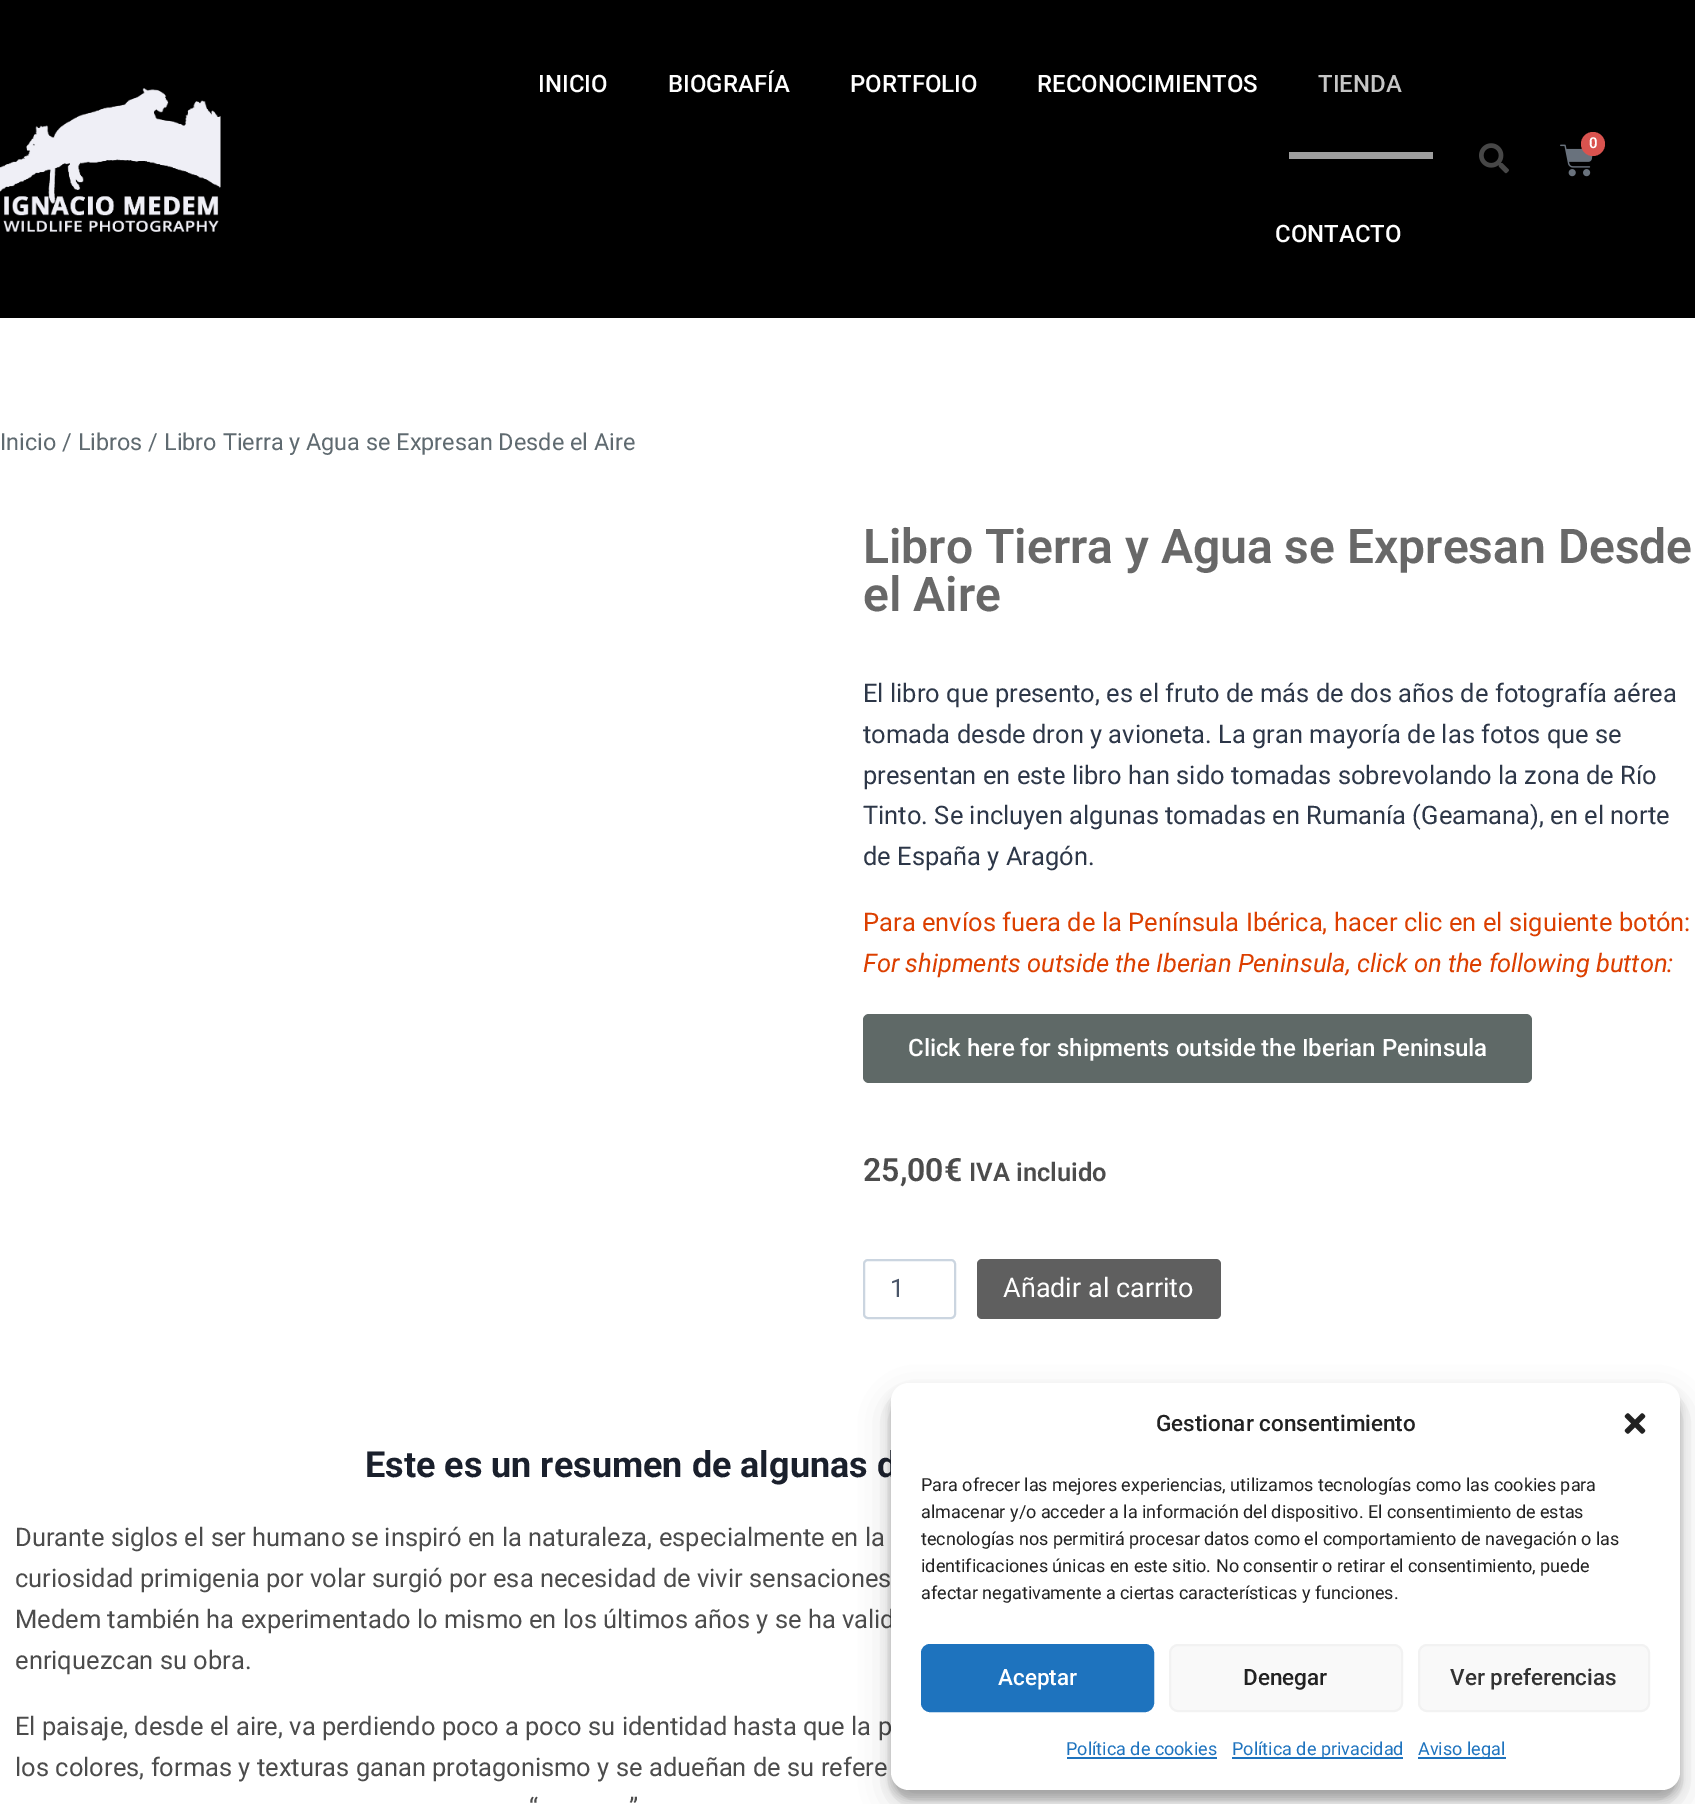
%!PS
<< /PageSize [1695 1804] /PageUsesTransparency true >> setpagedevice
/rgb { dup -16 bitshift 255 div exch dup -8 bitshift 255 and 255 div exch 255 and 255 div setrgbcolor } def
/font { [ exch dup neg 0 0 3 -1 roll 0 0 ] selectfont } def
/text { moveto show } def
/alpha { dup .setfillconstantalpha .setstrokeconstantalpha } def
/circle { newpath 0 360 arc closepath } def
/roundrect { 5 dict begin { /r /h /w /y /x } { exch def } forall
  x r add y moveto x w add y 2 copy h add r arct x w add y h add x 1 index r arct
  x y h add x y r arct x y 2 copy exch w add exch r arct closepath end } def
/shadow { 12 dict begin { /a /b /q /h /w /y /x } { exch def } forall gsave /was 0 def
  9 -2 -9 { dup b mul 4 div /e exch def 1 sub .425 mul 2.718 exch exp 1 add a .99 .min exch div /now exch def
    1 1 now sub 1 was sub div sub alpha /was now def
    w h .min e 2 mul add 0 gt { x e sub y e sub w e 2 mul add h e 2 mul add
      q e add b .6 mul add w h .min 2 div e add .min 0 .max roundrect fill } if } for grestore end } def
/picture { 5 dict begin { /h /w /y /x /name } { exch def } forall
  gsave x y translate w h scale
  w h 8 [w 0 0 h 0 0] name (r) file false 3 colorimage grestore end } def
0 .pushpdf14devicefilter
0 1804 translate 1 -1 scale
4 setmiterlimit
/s1 { /Roboto-Medium 24 font 16#FFFFFF rgb } def
/s2 { /Roboto-Medium 24 font 16#C6C6C6 rgb } def
/s3 { /Roboto-SemiBold 15 font 16#FFFFFF rgb } def
/s4 { /Roboto-Regular 23.45 font 16#5F6A70 rgb } def
/s5 { /Roboto-SemiBold 48 font 16#686868 rgb } def
/s6 { /Roboto-Regular 25.5 font 16#2D3748 rgb } def
/s7 { /Roboto-Regular 25.5 font 16#DC3F00 rgb } def
/s8 { /Roboto-Italic 25.5 font 16#DC3F00 rgb } def
/s9 { /Roboto-SemiBold 32 font 16#4C4C4C rgb } def
/s10 { /Roboto-SemiBold 25.5 font 16#4C4C4C rgb } def
/s11 { /Roboto-Regular 25.5 font 16#4A5568 rgb } def
/s12 { /Roboto-Regular 27 font 16#FFFFFF rgb } def
/s13 { /Roboto-Bold 36 font 16#1A202C rgb } def
/s14 { /Roboto-Regular 25.5 font 16#4C4C4C rgb } def
/s15 { /Roboto-Medium 22.5 font 16#222222 rgb } def
/s16 { /Roboto-Regular 18 font 16#222222 rgb } def
/s17 { /Roboto-Medium 22.5 font 16#FFFFFF rgb } def
/s18 { /Roboto-Medium 22.5 font 16#333333 rgb } def
/s19 { /Roboto-Regular 18 font 16#1E73BE rgb } def
16#000000 rgb
0 0 1695 1804 rectfill
(pic1.raw) 0 88 221 144 picture
s1
(INICIO) 538 92 text
(BIOGRAFÍA) 668 92 text
(PORTFOLIO) 850 92 text
(RECONOCIMIENTOS) 1037 92 text
s2
(TIENDA) 1318 92 text
16#9E9E9E rgb
1289 152 144 7 rectfill
s1
(CONTACTO) 1275 242 text
(pic2.raw) 1479 143 30 31 picture
(pic3.raw) 1560 144 33 33 picture
16#D9534F rgb
1593 144 12 circle fill
s3
(0) 1589 148 text
0 318 1695 1486 rectfill
s4
(Inicio / Libros / Libro Tierra y Agua se Expresan Desde el Aire) 0 450 text
s5
(Libro Tierra y Agua se Expresan Desde) 863 563 text
(el Aire) 863 611 text
s6
(El libro que presento, es el fruto de más de dos años de fotografía aérea) 863 702 text
(tomada desde dron y avioneta. La gran mayoría de las fotos que se) 863 743 text
(presentan en este libro han sido tomadas sobrevolando la zona de Río) 863 784 text
(Tinto. Se incluyen algunas tomadas en Rumanía \(Geamana\), en el norte) 863 824 text
(de España y Aragón.) 863 865 text
s7
(Para envíos fuera de la Península Ibérica, hacer clic en el siguiente botón:) 863 931 text
s8
(For shipments outside the Iberian Peninsula, click on the following button:) 863 972 text
16#5F6967 rgb
863 1014 669 69 6 roundrect fill
s1
(Click here for shipments outside the Iberian Peninsula) 908 1056 text
s9
(25,00€) 863 1181 text
s10
(IVA incluido) 969 1181 text
16#CBD5E0 rgb
2 setlinewidth
864 1260 91 58 4 roundrect stroke
s11
(1) 890 1297 text
16#5F5F5F rgb
977 1259 244 60 5 roundrect fill
s12
(Añadir al carrito) 1003 1297 text
s13
(Este es un resumen de algunas d) 365 1477 text
s14
(Durante siglos el ser humano se inspiró en la naturaleza, especialmente en la) 15 1546 text
(curiosidad primigenia por volar surgió por esa necesidad de vivir sensaciones) 15 1587 text
(Medem también ha experimentado lo mismo en los últimos años y se ha valid) 15 1628 text
(enriquezcan su obra.) 15 1669 text
(El paisaje, desde el aire, va perdiendo poco a poco su identidad hasta que la p) 15 1735 text
(los colores, formas y texturas ganan protagonismo y se adueñan de su refere) 15 1776 text
(“) 529 1816 text
(”) 629 1816 text
16#000000 rgb
891 1392 789 407 18 4.5 0.23 shadow
891 1398 789 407 18 15 0.19 shadow
16#FFFFFF rgb
891 1383 789 407 18 roundrect fill
s15
(Gestionar consentimiento) 1156 1431 text
(pic4.raw) 1624 1413 22 21 picture
s16
(Para ofrecer las mejores experiencias, utilizamos tecnologías como las cookies para) 921 1491 text
(almacenar y/o acceder a la información del dispositivo. El consentimiento de estas) 921 1518 text
(tecnologías nos permitirá procesar datos como el comportamiento de navegación o las) 921 1545 text
(identificaciones únicas en este sitio. No consentir o retirar el consentimiento, puede) 921 1572 text
(afectar negativamente a ciertas características y funciones.) 921 1599 text
16#1E73BE rgb
922 1645 231 66 8 roundrect gsave fill grestore
stroke
s17
(Aceptar) 998 1685 text
16#F9F9F9 rgb
1170 1645 232 66 8 roundrect gsave fill grestore
16#F2F2F2 rgb
stroke
s15
(Denegar) 1243 1685 text
16#F9F9F9 rgb
1419 1645 230 66 8 roundrect gsave fill grestore
16#F2F2F2 rgb
stroke
s18
(Ver preferencias) 1450 1685 text
s19
(Política de cookies) 1066 1755 text
1067 1757 150 2 rectfill
1232 1757 171 2 rectfill
(Política de privacidad) 1232 1755 text
1418 1757 88 2 rectfill
(Aviso legal) 1418 1755 text
.poppdf14devicefilter showpage
